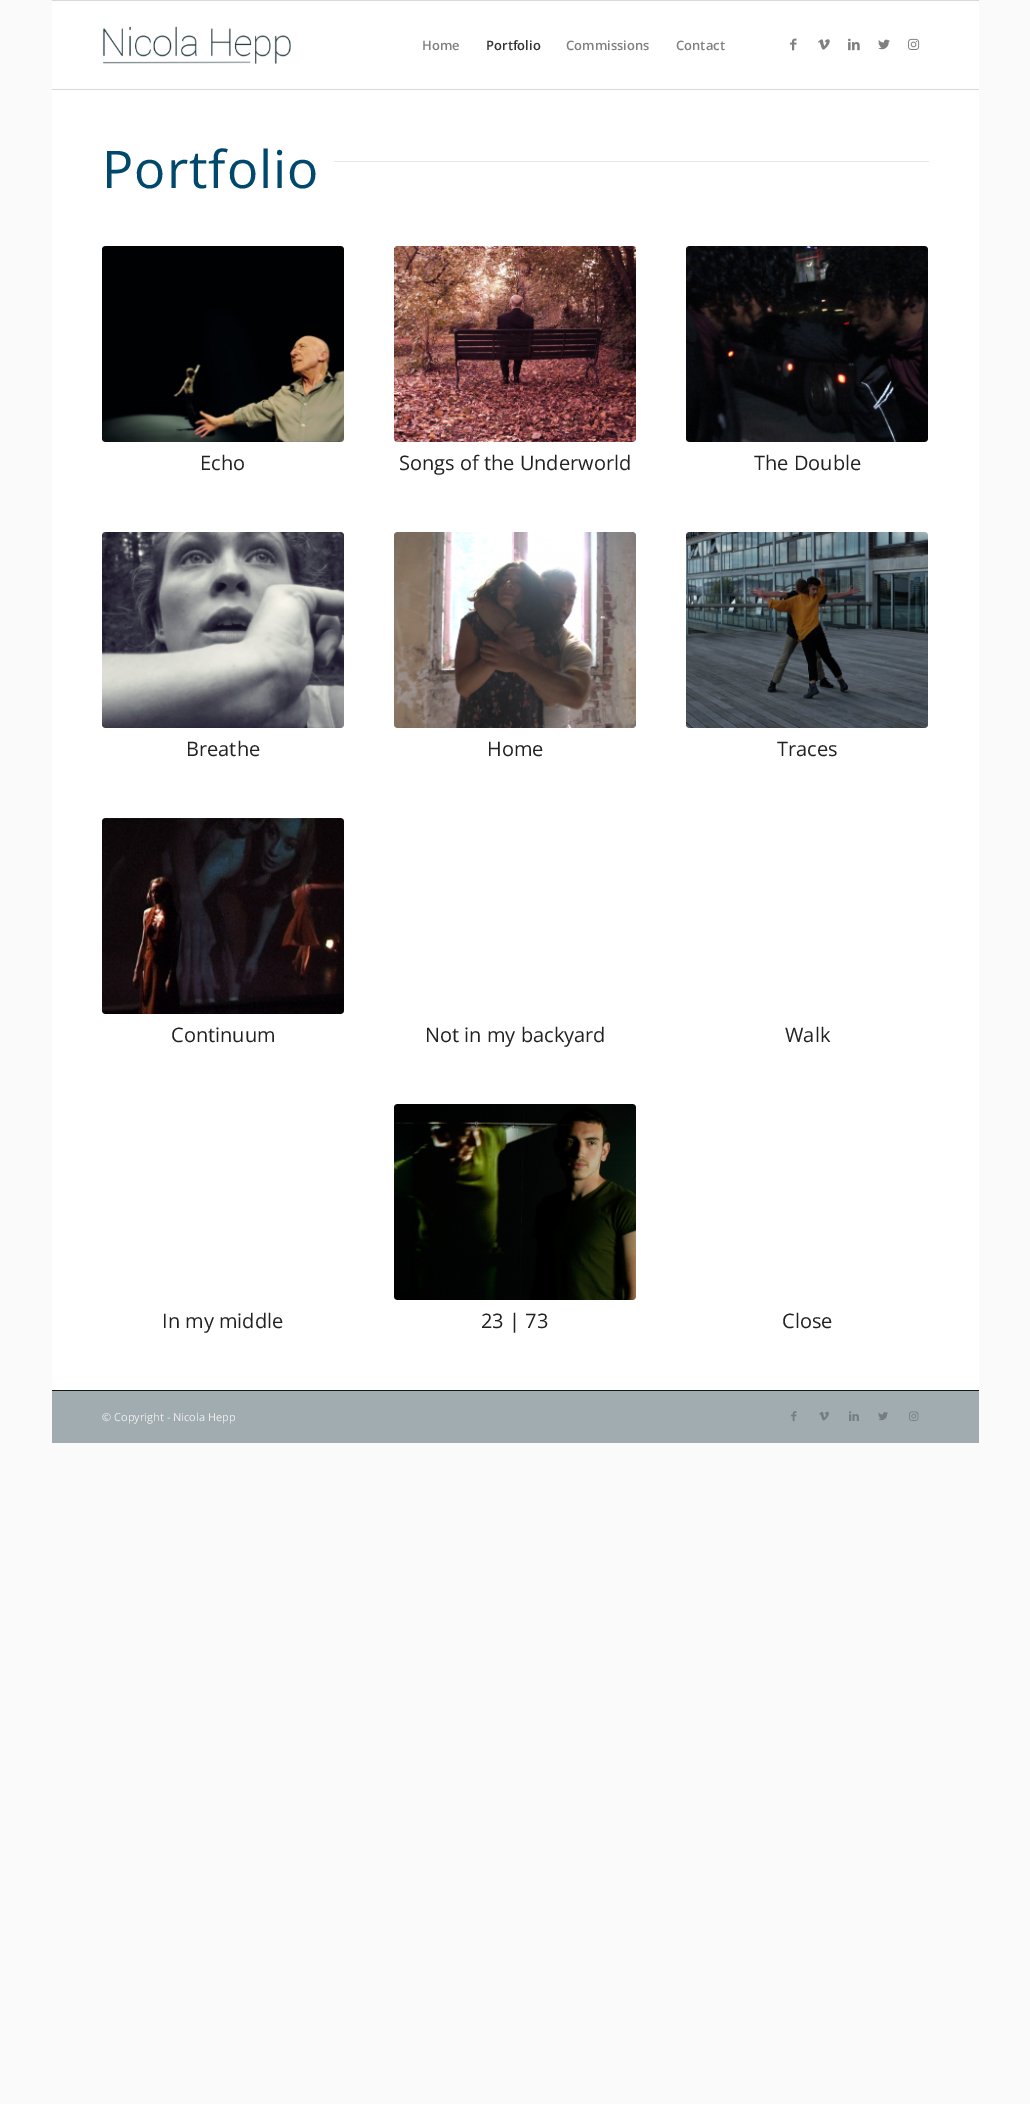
%!PS
<< /PageSize [1030 2104] >> setpagedevice
/rgb { dup -16 bitshift 255 div exch dup -8 bitshift 255 and 255 div exch 255 and 255 div setrgbcolor } def
/font { [ exch dup neg 0 0 3 -1 roll 0 0 ] selectfont } def
/text { moveto show } def
/picture { 5 dict begin { /h /w /y /x /name } { exch def } forall
  gsave x y translate w h scale
  w h 8 [w 0 0 h 0 0] name (r) file false 3 colorimage grestore end } def
0 2104 translate 1 -1 scale
4 setmiterlimit
/s1 { /OpenSans-SemiBold 13 font 16#808080 rgb } def
/s2 { /OpenSans-SemiBold 13 font 16#333333 rgb } def
/s3 { /OpenSans-Regular 20 font 16#222222 rgb } def
/s4 { /OpenSans-Regular 11 font 16#EEEEEE rgb } def
16#FAFAFA rgb
0 0 1030 2104 rectfill
16#D9D9D9 rgb
52 0 927 1 rectfill
52 89 927 1 rectfill
16#FFFFFF rgb
52 1 927 87 rectfill
(pic1.raw) 102 26 189 38 picture
s1
(Home) 422 50 text
s2
(Portfolio) 486 50 text
s1
(Commissions) 566 50 text
(Contact) 676 50 text
(pic2.raw) 790 38 7 13 picture
(pic3.raw) 818 39 12 11 picture
(pic4.raw) 848 38 12 13 picture
(pic5.raw) 878 39 12 11 picture
(pic6.raw) 908 38 12 12 picture
16#FFFFFF rgb
52 90 927 1300 rectfill
16#FEFEFE rgb
52 88 927 1 rectfill
/OpenSans-Regular 52 font
16#00496D rgb
102 188 moveto 1 0 (Portfolio) ashow
16#E8E8E8 rgb
334 161 595 1 rectfill
(pic7.raw) 102 246 242 196 picture
s3
(Echo) 200 470 text
(pic8.raw) 394 246 242 196 picture
(Songs of the Underworld) 399 470 text
(pic9.raw) 686 246 242 196 picture
(The Double) 754 470 text
(pic10.raw) 102 532 242 196 picture
(Breathe) 186 756 text
(pic11.raw) 394 532 242 196 picture
(Home) 487 756 text
(pic12.raw) 686 532 242 196 picture
(Traces) 777 756 text
(pic13.raw) 102 818 242 196 picture
(Continuum) 171 1042 text
(Not in my backyard) 425 1042 text
(Walk) 785 1042 text
(In my middle) 162 1328 text
(pic14.raw) 394 1104 242 196 picture
(23 | 73) 481 1328 text
(Close) 782 1328 text
16#A1ACB0 rgb
52 1391 927 52 rectfill
16#161616 rgb
52 1390 927 1 rectfill
s4
(© Copyright - Nicola Hepp) 102 1421 text
(pic15.raw) 791 1411 6 11 picture
(pic16.raw) 819 1411 10 10 picture
(pic17.raw) 849 1411 10 10 picture
(pic18.raw) 878 1412 10 9 picture
(pic19.raw) 909 1411 10 10 picture
showpage
